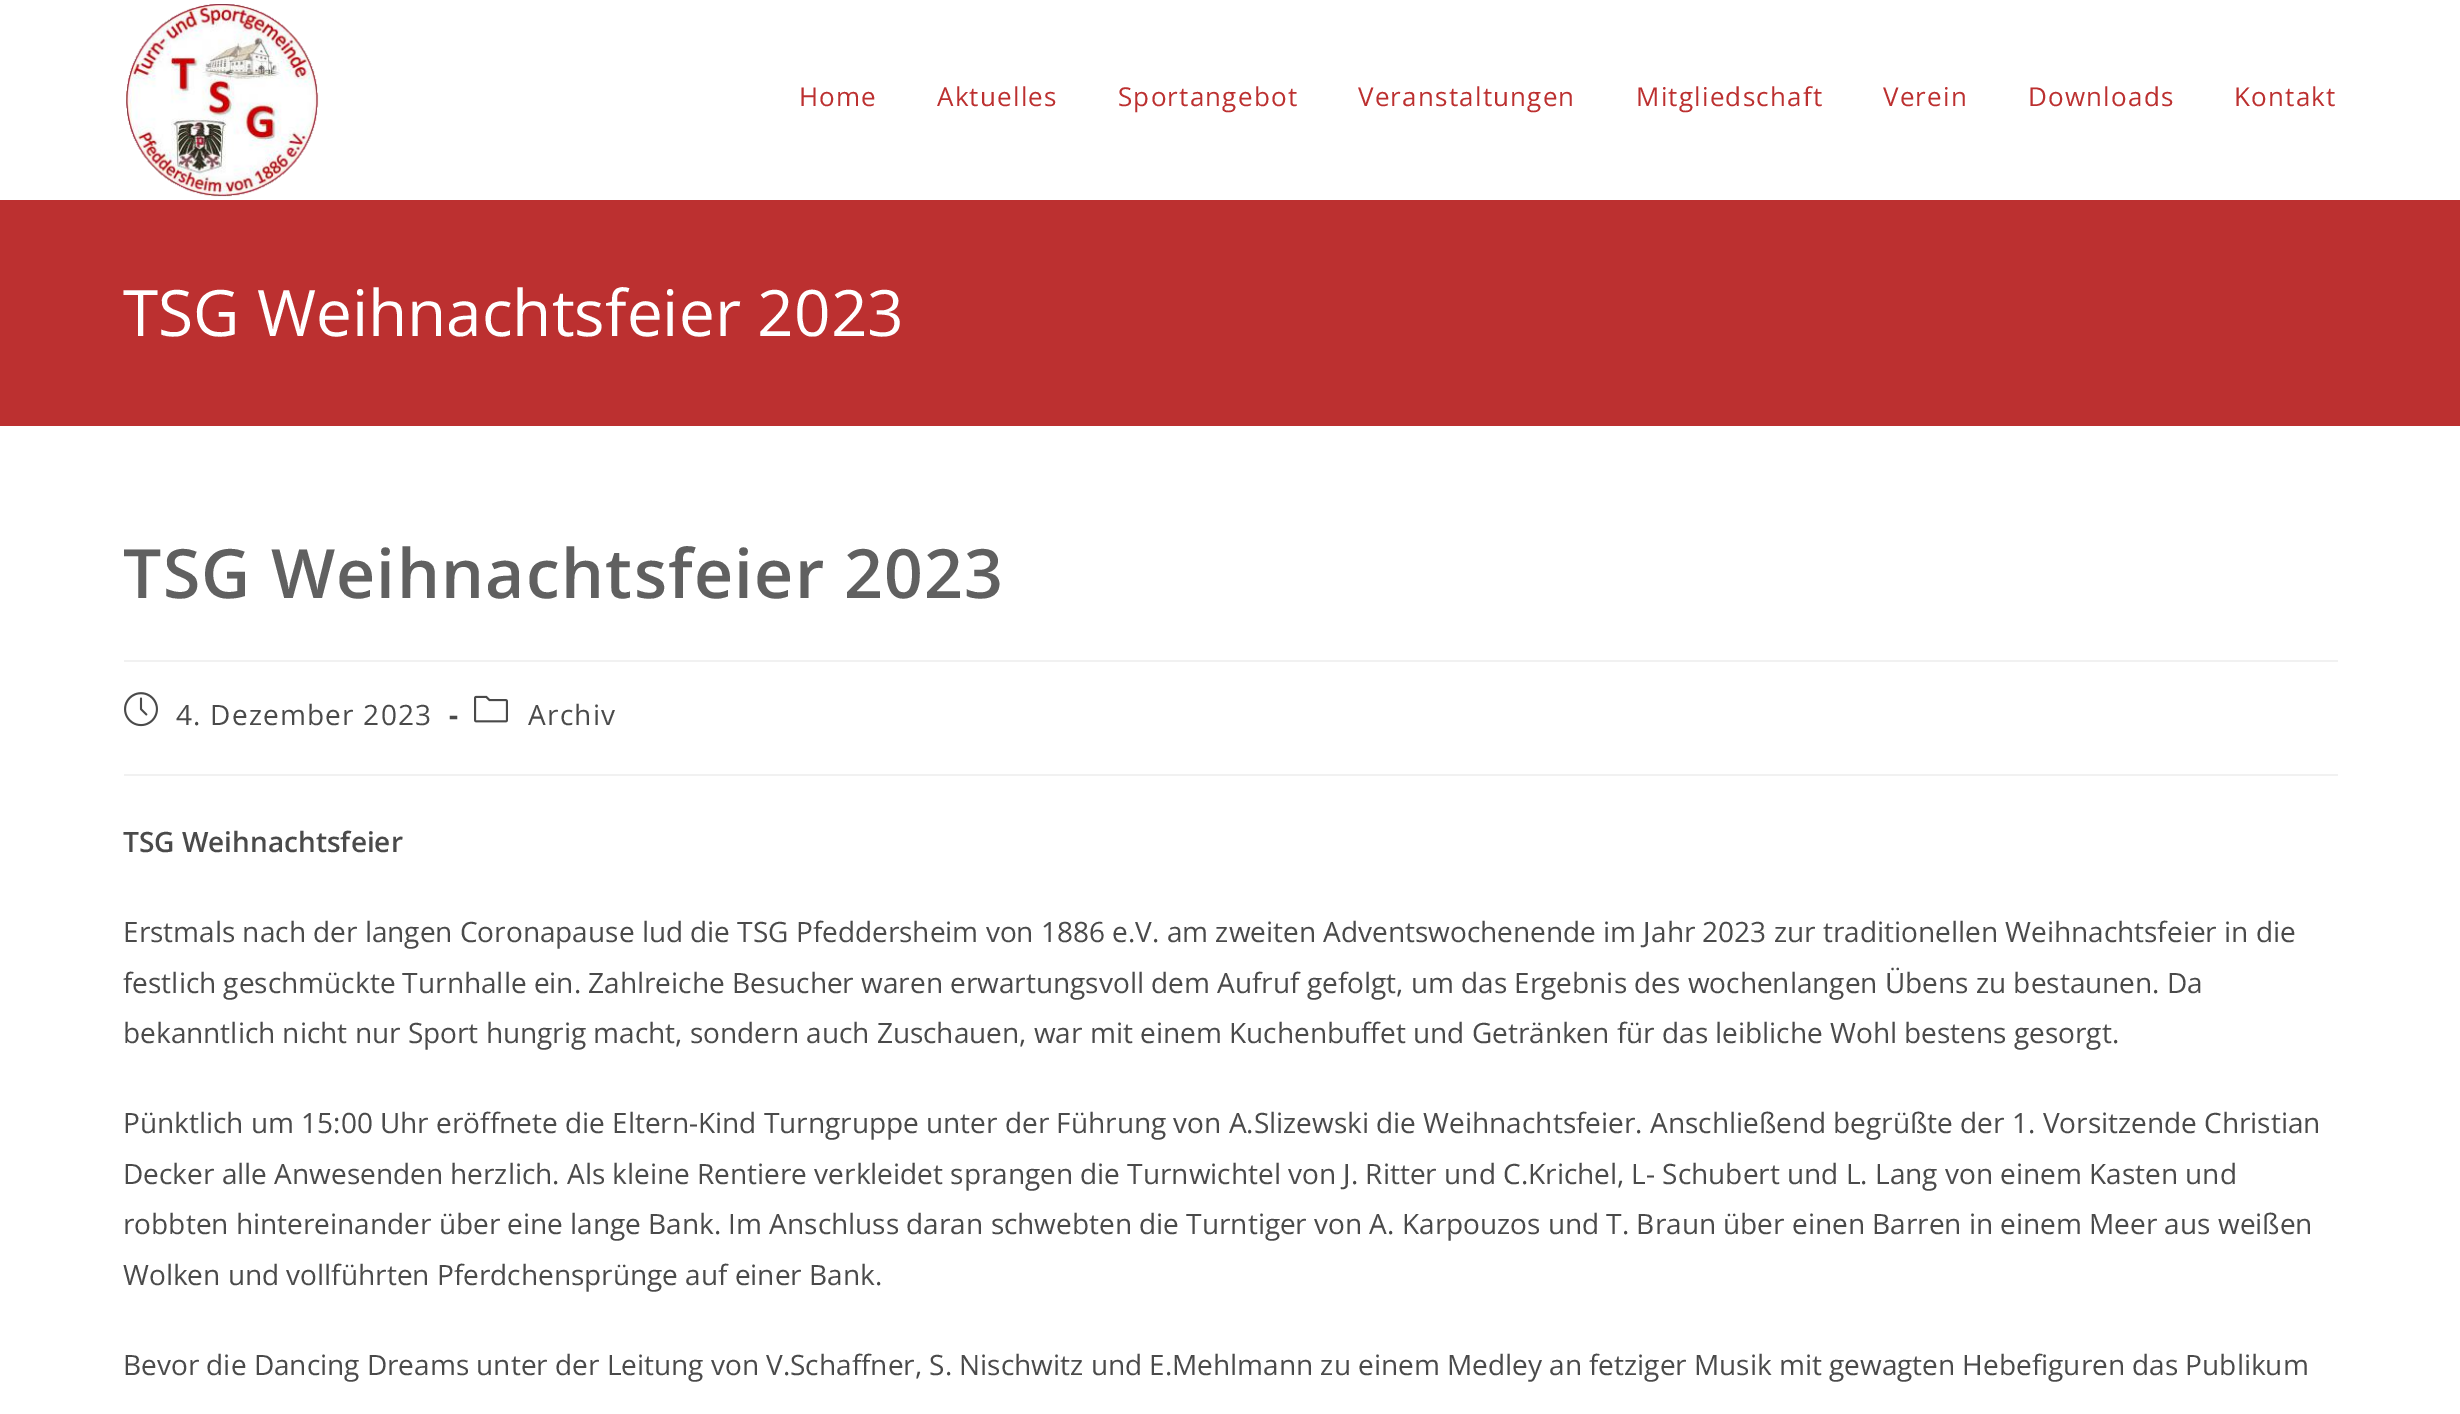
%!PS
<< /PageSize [2460 1414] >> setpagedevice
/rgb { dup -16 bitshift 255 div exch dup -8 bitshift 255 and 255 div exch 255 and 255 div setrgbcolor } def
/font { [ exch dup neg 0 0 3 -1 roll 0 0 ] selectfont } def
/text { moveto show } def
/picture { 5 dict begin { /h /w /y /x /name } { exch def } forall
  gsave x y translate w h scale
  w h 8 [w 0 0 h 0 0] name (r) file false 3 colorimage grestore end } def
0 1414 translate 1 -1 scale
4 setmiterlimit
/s1 { /OpenSans-Regular 64 font 16#FFFFFF rgb } def
/s2 { /OpenSans-SemiBold 28 font 16#4A4A4A rgb } def
/s3 { /OpenSans-Regular 28 font 16#4A4A4A rgb } def
16#FFFFFF rgb
0 0 2460 1414 rectfill
(pic1.raw) 126 4 193 193 picture
/OpenSans-Regular 26 font
16#BC3030 rgb
799 106 moveto 1.2 0 (Home) ashow
937 106 moveto 1.2 0 (Aktuelles) ashow
1118 106 moveto 1.2 0 (Sportangebot) ashow
1358 106 moveto 1.2 0 (Veranstaltungen) ashow
1636 106 moveto 1.2 0 (Mitgliedschaft) ashow
1883 106 moveto 1.2 0 (Verein) ashow
2028 106 moveto 1.2 0 (Downloads) ashow
2234 106 moveto 1.2 0 (Kontakt) ashow
0 200 2460 226 rectfill
s1
(TSG Weihnachtsfeier 2023) 123 336 text
16#F1F1F1 rgb
124 660 2214 2 rectfill
/OpenSans-SemiBold 68 font
16#606060 rgb
123 598 moveto 1.2 0 (TSG Weihnachtsfeier 2023) ashow
16#F1F1F1 rgb
124 774 2214 2 rectfill
(pic2.raw) 124 692 34 35 picture
/OpenSans-Regular 28 font
16#4A4A4A rgb
176 725 moveto 1.2 0 (4. Dezember 2023) ashow
/OpenSans-Bold 28 font
449 725 moveto 1.2 0 (-) ashow
(pic3.raw) 474 695 34 28 picture
/OpenSans-Regular 28 font
528 725 moveto 1.2 0 (Archiv) ashow
s2
(TSG Weihnachtsfeier) 123 852 text
s3
(Erstmals nach der langen Coronapause lud die TSG Pfeddersheim von 1886 e.V. am zweiten Adventswochenende im Jahr 2023 zur traditionellen Weihnachtsfeier in die) 123 942 text
(festlich geschmückte Turnhalle ein. Zahlreiche Besucher waren erwartungsvoll dem Aufruf gefolgt, um das Ergebnis des wochenlangen Übens zu bestaunen. Da) 123 993 text
(bekanntlich nicht nur Sport hungrig macht, sondern auch Zuschauen, war mit einem Kuchenbuffet und Getränken für das leibliche Wohl bestens gesorgt.) 123 1043 text
(Pünktlich um 15:00 Uhr eröffnete die Eltern-Kind Turngruppe unter der Führung von A.Slizewski die Weihnachtsfeier. Anschließend begrüßte der 1. Vorsitzende Christian) 123 1133 text
(Decker alle Anwesenden herzlich. Als kleine Rentiere verkleidet sprangen die Turnwichtel von J. Ritter und C.Krichel, L- Schubert und L. Lang von einem Kasten und) 123 1184 text
(robbten hintereinander über eine lange Bank. Im Anschluss daran schwebten die Turntiger von A. Karpouzos und T. Braun über einen Barren in einem Meer aus weißen) 123 1234 text
(Wolken und vollführten Pferdchensprünge auf einer Bank.) 123 1285 text
(Bevor die Dancing Dreams unter der Leitung von V.Schaffner, S. Nischwitz und E.Mehlmann zu einem Medley an fetziger Musik mit gewagten Hebefiguren das Publikum) 123 1375 text
showpage
